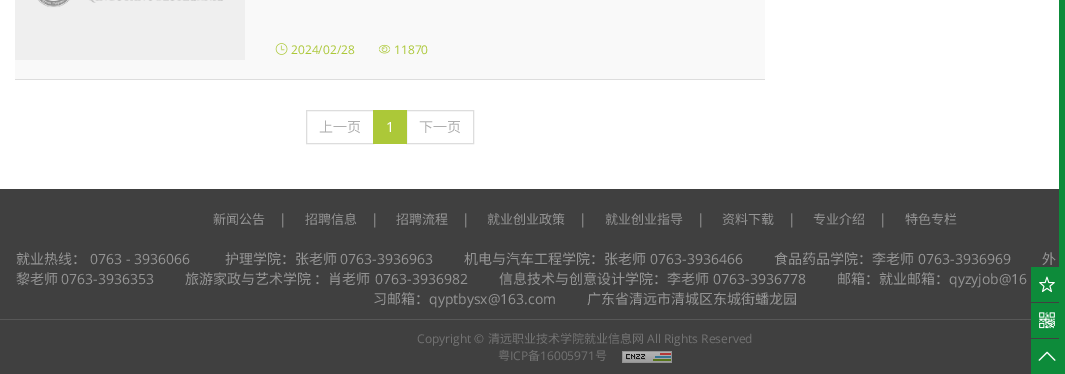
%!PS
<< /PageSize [1065 374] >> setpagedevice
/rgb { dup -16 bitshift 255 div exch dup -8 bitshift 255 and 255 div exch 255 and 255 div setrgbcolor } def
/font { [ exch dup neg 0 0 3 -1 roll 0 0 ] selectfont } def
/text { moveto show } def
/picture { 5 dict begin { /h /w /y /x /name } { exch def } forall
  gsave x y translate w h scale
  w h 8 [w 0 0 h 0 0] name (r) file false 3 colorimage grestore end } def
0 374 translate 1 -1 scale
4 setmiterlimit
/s1 { /OpenSans-Regular 12 font 16#ACC838 rgb } def
/s2 { /NotoSansCJKSC-Regular 14 font 16#AEAEAE rgb } def
/s3 { /OpenSans-Regular 14 font 16#FFFFFF rgb } def
/s4 { /NotoSansCJKSC-Regular 13 font 16#959595 rgb } def
/s5 { /OpenSans-Regular 14 font 16#959595 rgb } def
/s6 { /NotoSansCJKSC-Regular 14 font 16#959595 rgb } def
/s7 { /OpenSans-Regular 12 font 16#737373 rgb } def
/s8 { /NotoSansCJKSC-Regular 12 font 16#737373 rgb } def
16#FFFFFF rgb
0 0 1065 374 rectfill
16#F9F9F9 rgb
15 0 750 79 rectfill
16#DDDDDD rgb
15 79 750 1 rectfill
(pic1.raw) 15 0 230 60 picture
(pic2.raw) 275 43 13 12 picture
s1
(2024/02/28) 291 54 text
(pic3.raw) 378 44 13 10 picture
(11870) 394 54 text
16#DDDDDD rgb
306.5 110.5 67 33 rectstroke
s2
(上一页) 319 132 text
16#DDDDDD rgb
406.5 110.5 67 33 rectstroke
16#ACC838 rgb
373 110 34 34 rectfill
s3
(1) 386 132 text
s2
(下一页) 419 132 text
16#0D8B3A rgb
1059 0 6 339 rectfill
16#404040 rgb
0 189 1059 185 rectfill
16#0D8B3A rgb
1031 267 28 35 rectfill
(pic4.raw) 1039 276 16 17 picture
1031 303 28 35 rectfill
(pic5.raw) 1039 312 16 17 picture
1031 339 34 35 rectfill
(pic6.raw) 1038 351 18 10 picture
s4
(新闻公告) 213 224 text
s5
(|) 279 224 text
s4
(招聘信息) 305 224 text
s5
(|) 371 224 text
s4
(招聘流程) 396 224 text
s5
(|) 462 224 text
s4
(就业创业政策) 487 224 text
s5
(|) 579 224 text
s4
(就业创业指导) 605 224 text
s5
(|) 697 224 text
s4
(资料下载) 722 224 text
s5
(|) 788 224 text
s4
(专业介绍) 813 224 text
s5
(|) 879 224 text
s4
(特色专栏) 905 224 text
s6
(就业热线：) 16 264 text
s5
(0763 - 3936066) 90 264 text
s6
(护理学院：张老师) 225 264 text
s5
(0763-3936963) 340 264 text
s6
(机电与汽车工程学院：张老师) 464 264 text
s5
(0763-3936466) 650 264 text
s6
(食品药品学院：李老师) 774 264 text
s5
(0763-3936969) 918 264 text
s6
(外) 1042 264 text
(黎老师) 16 284 text
s5
(0763-3936353) 61 284 text
s6
(旅游家政与艺术学院 ：肖老师) 185 284 text
s5
(0763-3936982) 375 284 text
s6
(信息技术与创意设计学院：李老师) 499 284 text
s5
(0763-3936778) 713 284 text
s6
(邮箱：就业邮箱：) 837 284 text
s5
(qyzyjob@16) 949 284 text
s6
(习邮箱：) 373 304 text
s5
(qyptbysx@163.com) 429 304 text
s6
(广东省清远市清城区东城街蟠龙园) 587 304 text
16#575757 rgb
0 319 1031 1 rectfill
s7
(Copyright ©) 417 343 text
s8
(清远职业技术学院就业信息网) 488 343 text
s7
(All Rights Reserved) 647 343 text
s8
(粤) 498 360 text
s7
(ICP) 510 360 text
s8
(备) 528 360 text
s7
(16005971) 540 360 text
s8
(号) 595 360 text
(pic7.raw) 622 351 50 12 picture
showpage
